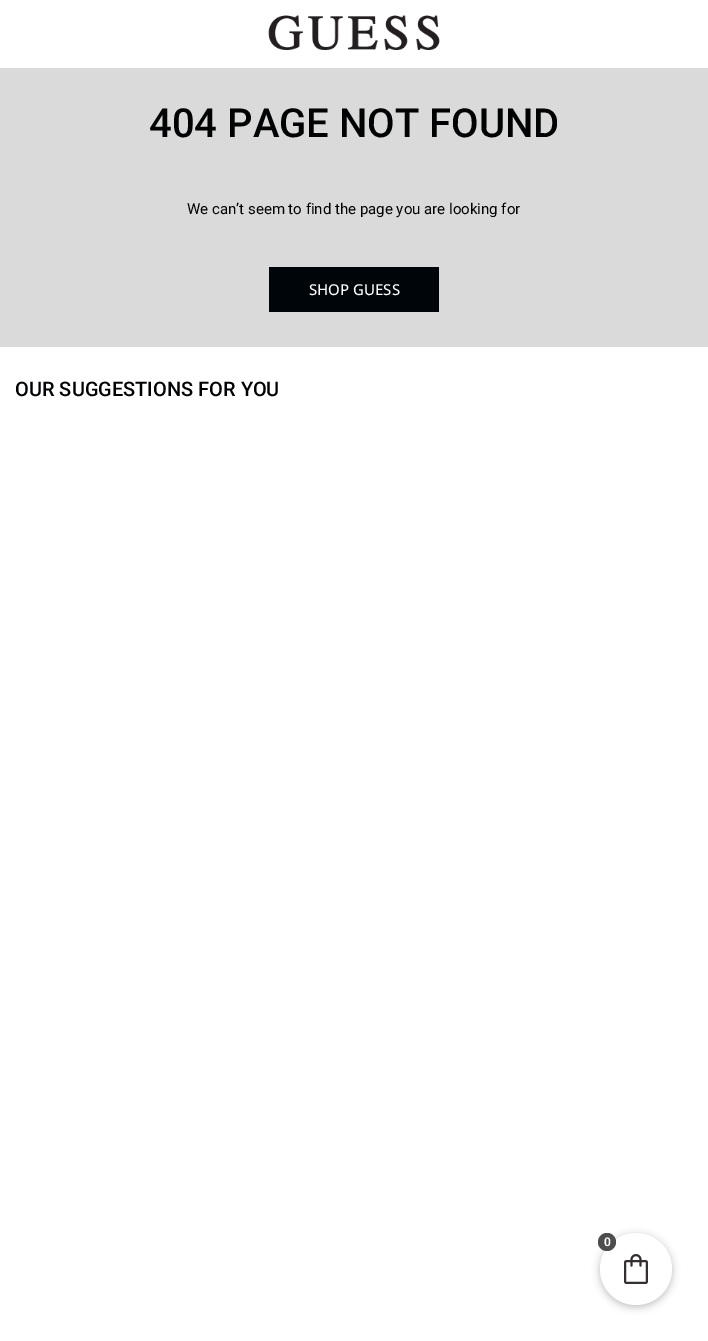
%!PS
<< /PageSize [708 1341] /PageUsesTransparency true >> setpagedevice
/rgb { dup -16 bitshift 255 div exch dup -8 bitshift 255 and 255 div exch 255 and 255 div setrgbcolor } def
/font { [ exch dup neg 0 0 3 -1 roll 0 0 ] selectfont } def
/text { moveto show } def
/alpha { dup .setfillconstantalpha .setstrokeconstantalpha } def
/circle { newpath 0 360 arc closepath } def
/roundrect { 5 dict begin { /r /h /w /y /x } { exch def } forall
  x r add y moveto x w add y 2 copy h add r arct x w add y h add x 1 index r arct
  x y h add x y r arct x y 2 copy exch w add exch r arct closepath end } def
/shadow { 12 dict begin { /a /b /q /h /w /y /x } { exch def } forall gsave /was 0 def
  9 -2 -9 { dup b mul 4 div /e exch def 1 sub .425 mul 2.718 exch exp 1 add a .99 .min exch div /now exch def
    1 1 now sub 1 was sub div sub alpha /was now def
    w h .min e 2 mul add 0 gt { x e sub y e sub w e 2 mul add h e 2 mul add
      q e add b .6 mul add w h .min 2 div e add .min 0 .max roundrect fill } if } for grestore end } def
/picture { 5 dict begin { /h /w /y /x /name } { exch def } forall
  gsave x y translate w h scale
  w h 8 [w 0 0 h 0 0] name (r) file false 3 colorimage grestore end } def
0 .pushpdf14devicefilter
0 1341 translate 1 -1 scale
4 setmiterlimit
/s1 { /Roboto-Medium 40 font 16#000203 rgb } def
/s2 { /Roboto-Regular 15 font 16#000203 rgb } def
/s3 { /OpenSans-Medium 15 font 16#FFFFFF rgb } def
/s4 { /Roboto-Medium 20 font 16#000203 rgb } def
/s5 { /Roboto-SemiBold 12 font 16#FFFFFF rgb } def
16#FFFFFF rgb
0 0 708 1341 rectfill
(pic1.raw) 268 15 172 35 picture
16#DADADA rgb
0 68 708 279 rectfill
s1
(404 PAGE NOT FOUND) 149 137 text
s2
(We can’t seem to find the page you are looking for) 187 214 text
16#00050A rgb
269 267 170 45 rectfill
s3
(SHOP GUESS) 309 295 text
s4
(OUR SUGGESTIONS FOR YOU) 15 396 text
16#000000 rgb
600 1235 72 72 36 4 0.25 shadow
16#FFFFFF rgb
636 1269 36 circle fill
(pic2.raw) 624 1254 24 30 picture
16#4D4D4D rgb
607 1242 9 circle fill
s5
(0) 604 1246 text
.poppdf14devicefilter showpage
